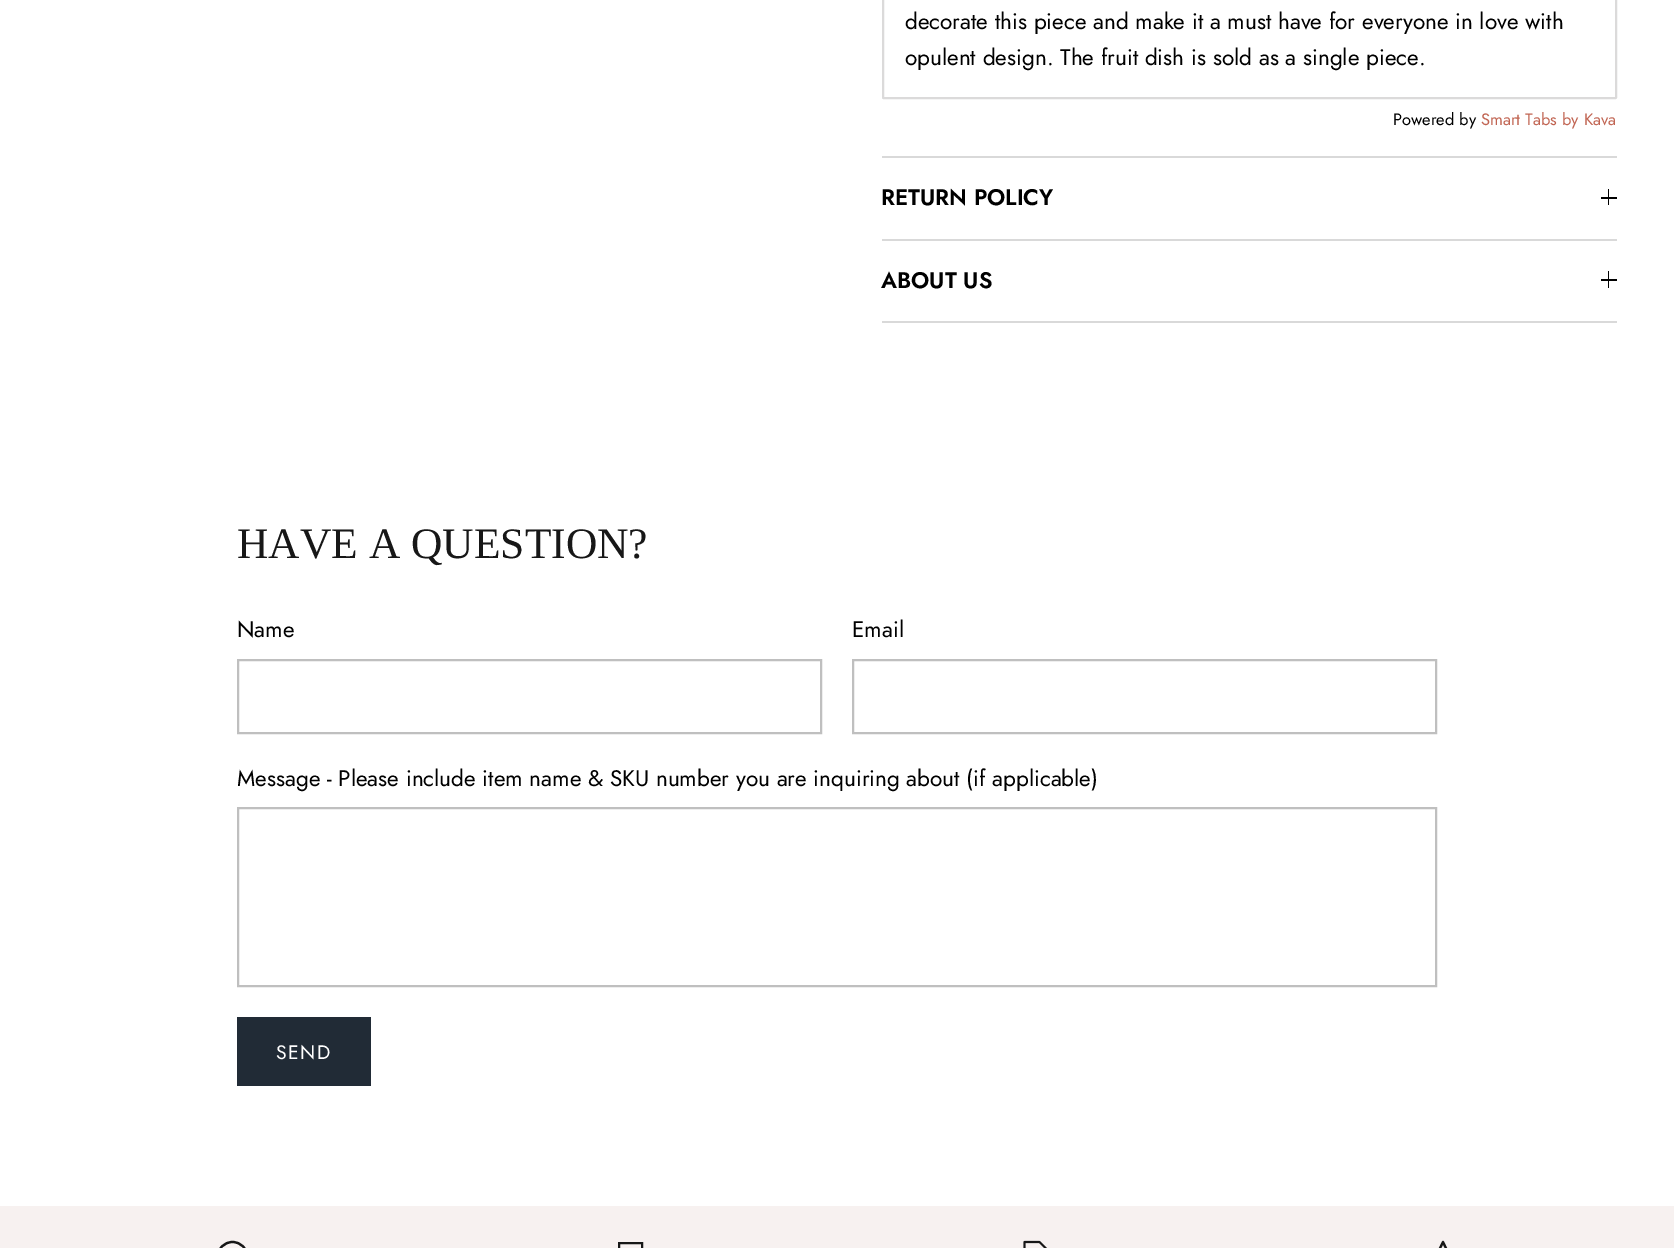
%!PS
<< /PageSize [1674 1248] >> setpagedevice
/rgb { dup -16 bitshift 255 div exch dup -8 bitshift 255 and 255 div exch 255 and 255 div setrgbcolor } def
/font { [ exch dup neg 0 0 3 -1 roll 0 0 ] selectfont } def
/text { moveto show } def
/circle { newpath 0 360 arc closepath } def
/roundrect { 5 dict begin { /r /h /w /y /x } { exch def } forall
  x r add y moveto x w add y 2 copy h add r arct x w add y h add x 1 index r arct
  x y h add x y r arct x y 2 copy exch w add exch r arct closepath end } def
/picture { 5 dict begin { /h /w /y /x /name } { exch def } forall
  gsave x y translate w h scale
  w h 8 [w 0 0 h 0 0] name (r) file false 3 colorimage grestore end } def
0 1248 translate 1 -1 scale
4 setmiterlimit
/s1 { /Jost-Regular 22.5 font 16#000000 rgb } def
/s2 { /Jost-Regular 16.5 font 16#000000 rgb } def
/s3 { /Jost-Regular 16.5 font 16#C16452 rgb } def
/s4 { /Jost-SemiBold 22.5 font 16#000000 rgb } def
/s5 { /LiberationSerif-Regular 43.5 font 16#171717 rgb } def
16#FFFFFF rgb
0 0 1674 1248 rectfill
16#DBDADA rgb
2 setlinewidth
883 -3 733 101 0.5 roundrect stroke
s1
(decorate this piece and make it a must have for everyone in love with) 905 29 text
(opulent design. The fruit dish is sold as a single piece.) 905 65 text
s2
(Powered by) 1393 125 text
s3
(Smart Tabs by Kava) 1481 125 text
16#D9D9D9 rgb
882 156 735 2 rectfill
882 239 735 2 rectfill
s4
(RETURN POLICY) 881 205 text
1608 189 1 16 rectfill
1601 197 16 2 rectfill
16#D9D9D9 rgb
882 321 735 2 rectfill
s4
(ABOUT US) 881 288 text
1608 271 1 17 rectfill
1601 279 16 2 rectfill
s5
(HAVE A QUESTION?) 237 558 text
s1
(Name) 237 637 text
16#BFBFBF rgb
238 660 583 73 rectstroke
s1
(Email) 852 637 text
16#BFBFBF rgb
853 660 583 73 rectstroke
s1
(Message - Please include item name & SKU number you are inquiring about \(if applicable\)) 237 786 text
16#BFBFBF rgb
238 808 1198 178 rectstroke
16#212B36 rgb
237 1017 134 69 rectfill
/Jost-Regular 19.5 font
16#FFFFFF rgb
276 1059 moveto 1.5 0 (SEND) ashow
16#F7F1F0 rgb
0 1206 1674 42 rectfill
16#171717 rgb
2.2 setlinewidth
232.5 1257 15 circle stroke
2 setlinewidth
619 1243 23 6 rectstroke
(pic1.raw) 1023 1240 24 8 picture
2.2 setlinewidth
1 setlinecap
1 setlinejoin
1443 1242 moveto 1447.5 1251.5 lineto 1458 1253 lineto 1450.5 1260 lineto 1452.5 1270.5 lineto 1443 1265.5 lineto 1433.5 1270.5 lineto 1435.5 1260 lineto 1428 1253 lineto 1438.5 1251.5 lineto closepath stroke
showpage
